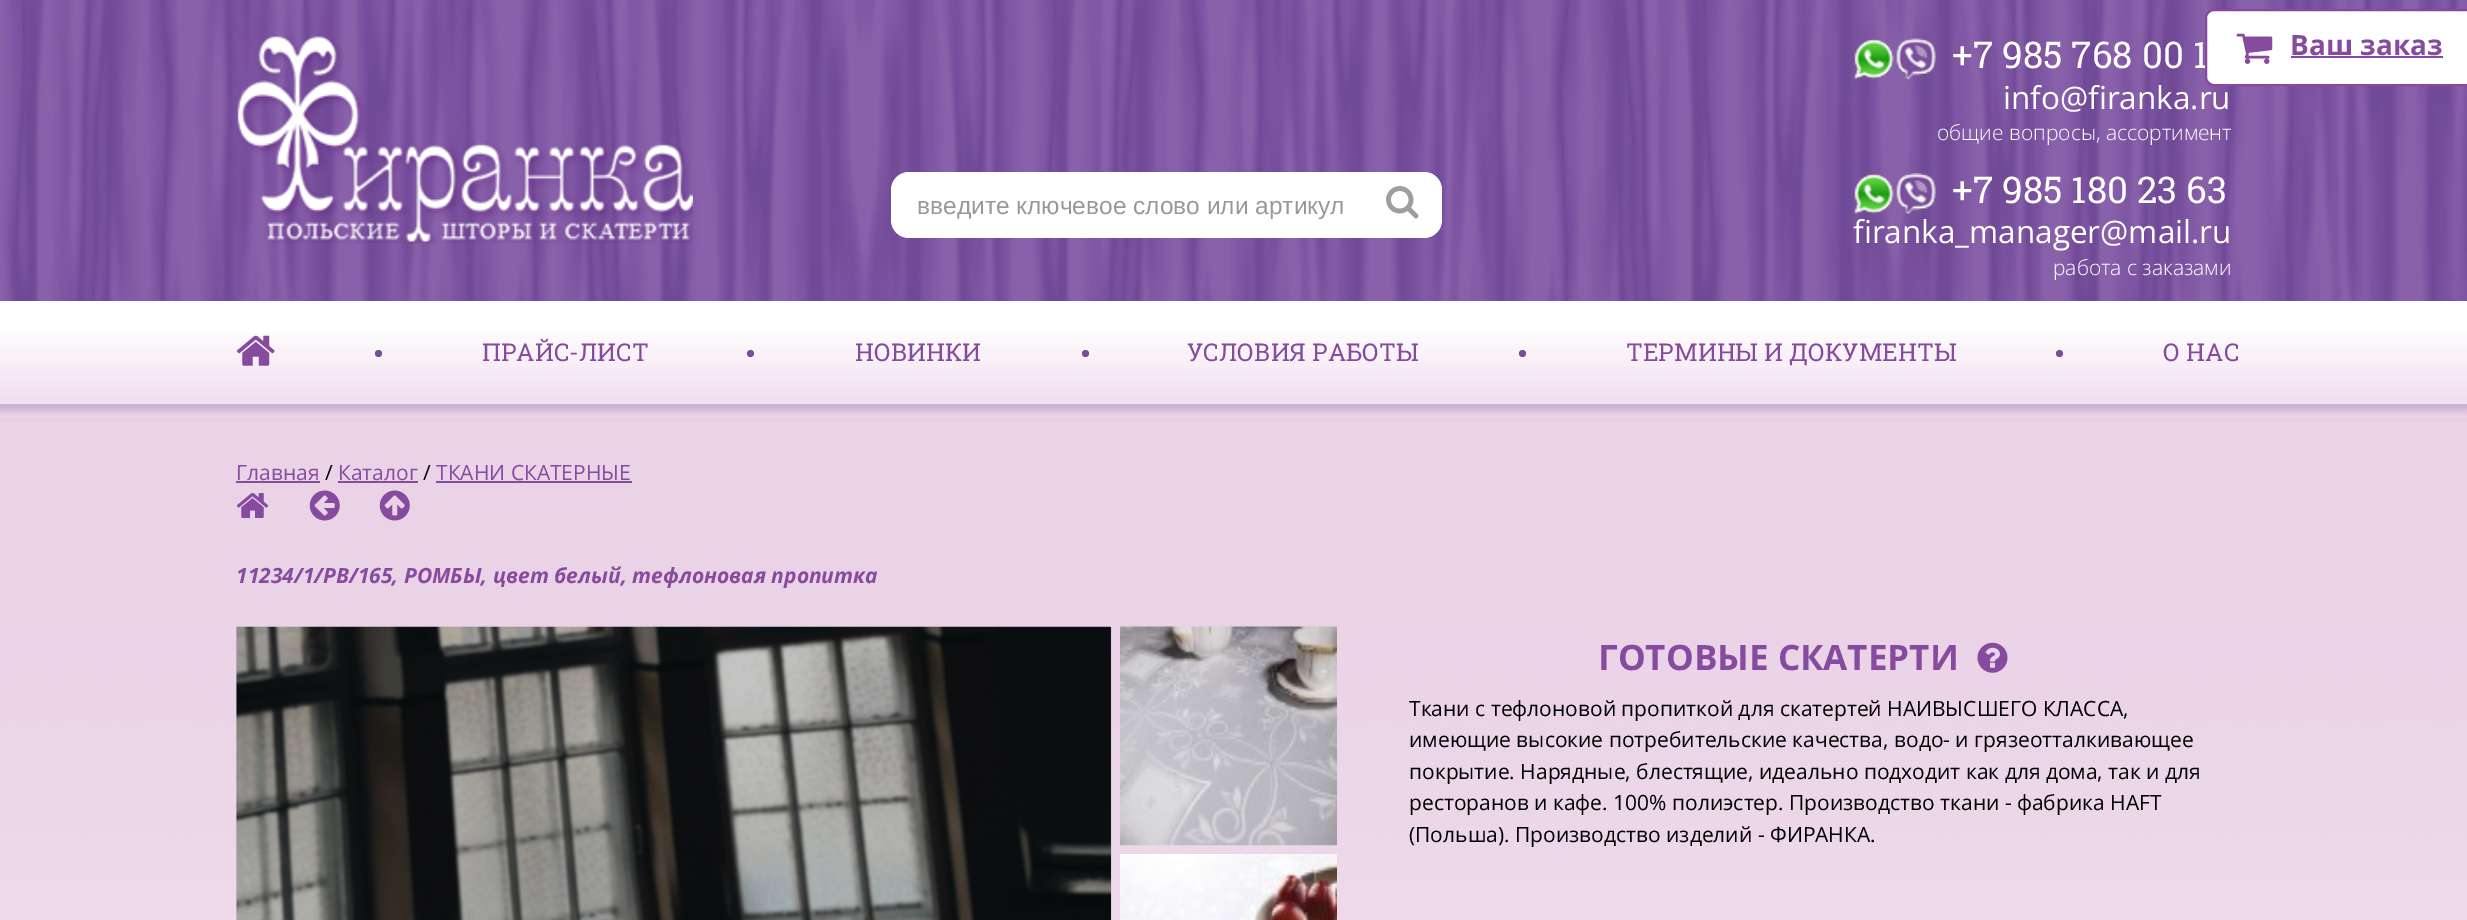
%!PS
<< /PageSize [2467 920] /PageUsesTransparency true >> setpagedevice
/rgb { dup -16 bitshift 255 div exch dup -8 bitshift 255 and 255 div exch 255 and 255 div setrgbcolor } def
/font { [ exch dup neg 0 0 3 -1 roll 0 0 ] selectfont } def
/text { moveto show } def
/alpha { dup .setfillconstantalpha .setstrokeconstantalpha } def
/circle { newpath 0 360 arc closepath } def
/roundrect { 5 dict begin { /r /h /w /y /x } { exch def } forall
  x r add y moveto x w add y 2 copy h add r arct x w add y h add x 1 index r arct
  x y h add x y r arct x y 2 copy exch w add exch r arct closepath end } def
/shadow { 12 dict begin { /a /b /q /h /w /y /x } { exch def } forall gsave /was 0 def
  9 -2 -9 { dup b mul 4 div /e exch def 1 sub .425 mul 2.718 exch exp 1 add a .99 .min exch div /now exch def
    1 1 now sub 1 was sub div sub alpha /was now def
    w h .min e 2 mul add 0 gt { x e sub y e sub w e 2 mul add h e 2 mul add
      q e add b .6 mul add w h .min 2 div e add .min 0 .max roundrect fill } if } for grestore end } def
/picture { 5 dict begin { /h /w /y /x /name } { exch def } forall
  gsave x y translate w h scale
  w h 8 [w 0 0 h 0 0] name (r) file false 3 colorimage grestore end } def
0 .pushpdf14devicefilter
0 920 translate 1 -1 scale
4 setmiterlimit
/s1 { /LiberationSans-Regular 24.5 font 16#989898 rgb } def
/s2 { /RobotoSlab-Regular 36.75 font 16#FFFFFF rgb } def
/s3 { /OpenSans-Regular 31.5 font 16#FFFFFF rgb } def
/s4 { /OpenSans-Light 21 font 16#FFFFFF rgb } def
/s5 { /RobotoSlab-Regular 24.5 font 16#864B9F rgb } def
/s6 { /OpenSans-Regular 21 font 16#864B9F rgb } def
/s7 { /OpenSans-Regular 21 font 16#000000 rgb } def
/s8 { /OpenSans-BoldItalic 21 font 16#864B9F rgb } def
/s9 { /OpenSans-Bold 35 font 16#864B9F rgb } def
/s10 { /OpenSans-Bold 28 font 16#864B9F rgb } def
16#FFFFFF rgb
0 0 2467 920 rectfill
(pic1.raw) 0 404 2467 516 picture
(pic2.raw) 0 0 2467 301 picture
(pic3.raw) 237 36 456 208 picture
891 172 551 66 18 roundrect fill
s1
(введите ключевое слово или артикул) 917 214 text
(pic4.raw) 1386 186 33 33 picture
(pic5.raw) 1853 38 83 43 picture
s2
(+7 985 768 00 1) 1952 68 text
s3
(info@firanka.ru) 2003 109 text
s4
(общие вопросы, ассортимент) 1937 140 text
(pic6.raw) 1853 173 83 43 picture
s2
(+7 985 180 23 63) 1952 203 text
s3
(firanka_manager@mail.ru) 1853 243 text
s4
(работа с заказами) 2053 275 text
gsave
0 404 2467 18 rectclip
16#C8AFD1 rgb
0 312 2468 101 0 4.5 0.82 shadow
grestore
(pic7.raw) 0 333 2467 72 picture
(pic8.raw) 236 335 39 31 picture
16#764E9B rgb
378.5 353.5 3.5 circle fill
s5
(ПРАЙС-ЛИСТ) 482 361 text
16#764E9B rgb
750.5 353.5 3.5 circle fill
s5
(НОВИНКИ) 855 361 text
16#764E9B rgb
1085.5 353.5 3.5 circle fill
s5
(УСЛОВИЯ РАБОТЫ) 1187 361 text
16#764E9B rgb
1522.5 353.5 3.5 circle fill
s5
(ТЕРМИНЫ И ДОКУМЕНТЫ) 1626 361 text
16#764E9B rgb
2059.5 353.5 3.5 circle fill
s5
(О НАС) 2163 361 text
(pic9.raw) 0 404 2467 14 picture
s6
(Главная) 236 480 text
236 481 84 2 rectfill
s7
(/) 325 480 text
s6
(Каталог) 338 480 text
338 481 80 2 rectfill
s7
(/) 423 480 text
s6
(ТКАНИ СКАТЕРНЫЕ) 436 480 text
436 481 196 2 rectfill
(pic10.raw) 236 493 33 25 picture
(pic11.raw) 309 490 31 31 picture
(pic12.raw) 379 490 31 31 picture
s8
(11234/1/PB/165, РОМБЫ, цвет белый, тефлоновая пропитка) 236 583 text
(pic13.raw) 236 626 876 294 picture
(pic14.raw) 1120 626 217 220 picture
(pic15.raw) 1120 854 217 66 picture
s9
(ГОТОВЫЕ СКАТЕРТИ) 1598 670 text
(pic16.raw) 1977 642 31 31 picture
s7
(Ткани с тефлоновой пропиткой для скатертей НАИВЫСШЕГО КЛАССА,) 1409 716 text
(имеющие высокие потребительские качества, водо- и грязеотталкивающее) 1409 747 text
(покрытие. Нарядные, блестящие, идеально подходит как для дома, так и для) 1409 779 text
(ресторанов и кафе. 100% полиэстер. Производство ткани - фабрика HAFT) 1409 810 text
(\(Польша\). Производство изделий - ФИРАНКА.) 1409 842 text
16#FFFFFF rgb
2206 10 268 75 8 roundrect gsave fill grestore
16#864B9F rgb
2 setlinewidth
stroke
(pic17.raw) 2236 33 37 31 picture
s10
(Ваш заказ) 2290 55 text
2291 56 152 2 rectfill
.poppdf14devicefilter showpage
